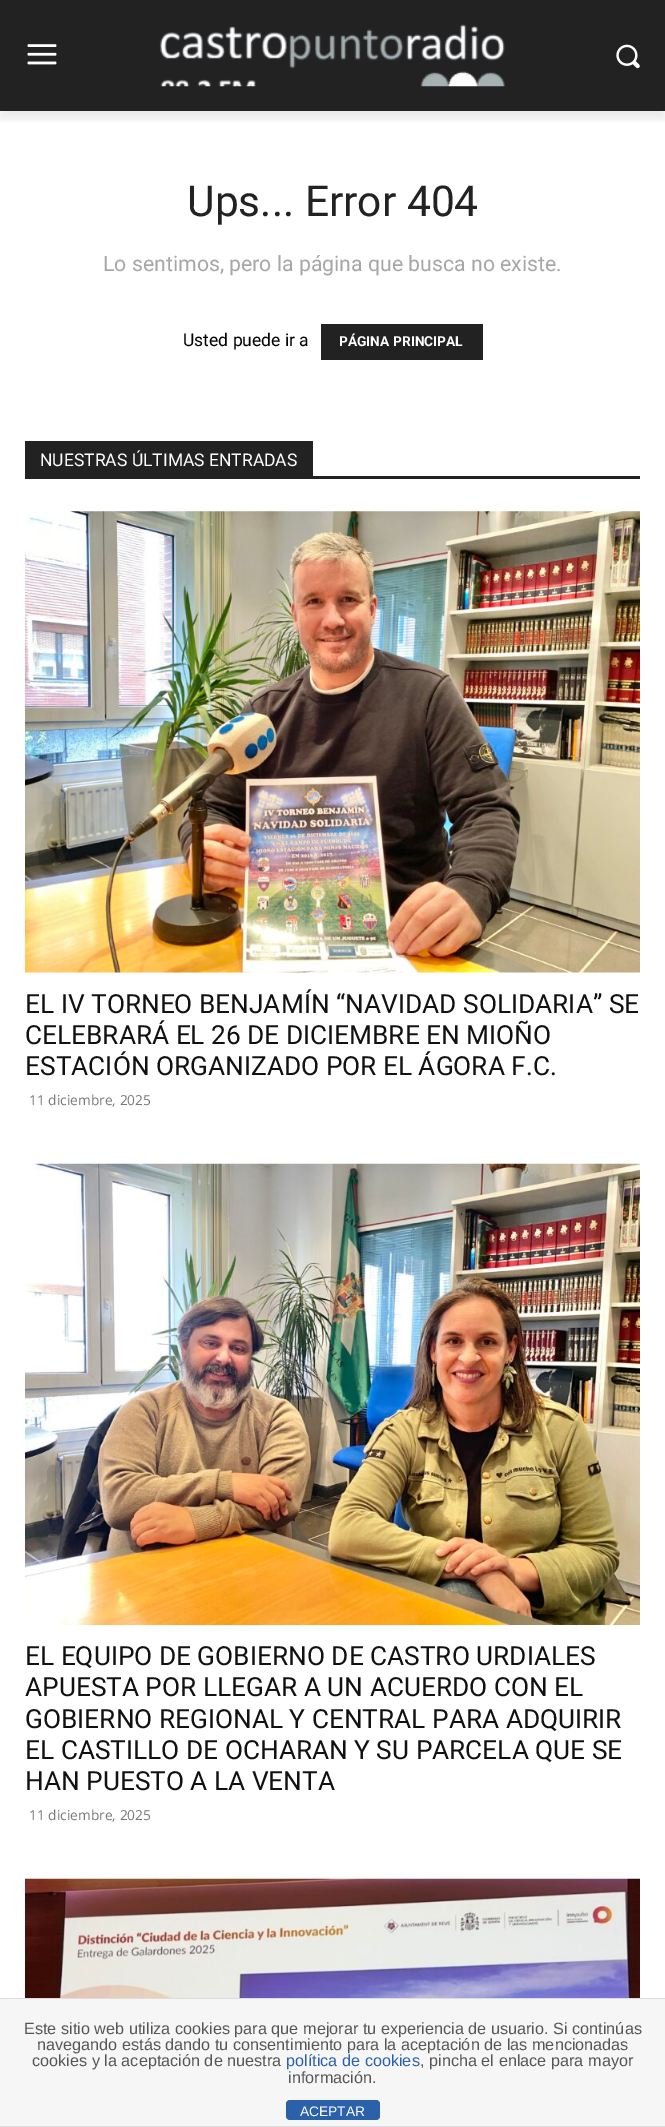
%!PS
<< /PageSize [665 2127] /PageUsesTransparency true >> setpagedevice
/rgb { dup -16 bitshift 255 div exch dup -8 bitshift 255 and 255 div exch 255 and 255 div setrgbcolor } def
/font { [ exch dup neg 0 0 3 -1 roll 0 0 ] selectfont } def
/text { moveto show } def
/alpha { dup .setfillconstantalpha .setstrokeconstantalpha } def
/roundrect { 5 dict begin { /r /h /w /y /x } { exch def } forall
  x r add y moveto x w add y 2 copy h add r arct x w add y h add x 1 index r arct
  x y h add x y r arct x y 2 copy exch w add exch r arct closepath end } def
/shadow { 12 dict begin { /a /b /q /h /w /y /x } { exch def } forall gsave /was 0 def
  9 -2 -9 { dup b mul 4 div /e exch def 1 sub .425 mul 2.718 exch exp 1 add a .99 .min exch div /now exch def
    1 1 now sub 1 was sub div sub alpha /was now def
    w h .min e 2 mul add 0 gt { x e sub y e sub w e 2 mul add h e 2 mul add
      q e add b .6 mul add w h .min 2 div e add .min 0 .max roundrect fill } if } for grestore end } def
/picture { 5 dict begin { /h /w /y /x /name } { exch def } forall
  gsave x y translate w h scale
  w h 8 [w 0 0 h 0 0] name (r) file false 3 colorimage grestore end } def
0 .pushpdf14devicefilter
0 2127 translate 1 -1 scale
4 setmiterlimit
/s1 { /Roboto-Regular 42.5 font 16#222222 rgb } def
/s2 { /Roboto-Regular 21.25 font 16#A6A6A6 rgb } def
/s3 { /Roboto-Regular 17.5 font 16#000000 rgb } def
/s4 { /Roboto-Bold 13.75 font 16#FFFFFF rgb } def
/s5 { /Roboto-Regular 17.5 font 16#FFFFFF rgb } def
/s6 { /Roboto-Regular 26.25 font 16#111111 rgb } def
/s7 { /OpenSans-Regular 13.75 font 16#767676 rgb } def
/s8 { /LiberationSans-Regular 16.25 font 16#565656 rgb } def
/s9 { /LiberationSans-Regular 16.25 font 16#2B60AB rgb } def
/s10 { /LiberationSans-Regular 13.75 font 16#FFFFFF rgb } def
16#FFFFFF rgb
0 0 665 2127 rectfill
16#222222 rgb
0 0 665 111 rectfill
(pic1.raw) 27 44 30 21 picture
(pic2.raw) 159 24 346 63 picture
(pic3.raw) 616 44 24 25 picture
gsave
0 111 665 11 rectclip
16#000000 rgb
0 8 665 111 0 5 0.08 shadow
grestore
s1
(Ups... Error 404) 187 216 text
s2
(Lo sentimos, pero la página que busca no existe.) 103 271 text
s3
(Usted puede ir a) 183 346 text
16#222222 rgb
321 324 162 36 rectfill
s4
(PÁGINA PRINCIPAL) 339 346 text
16#222222 rgb
25 476 615 3 rectfill
25 441 288 35 rectfill
s5
(NUESTRAS ÚLTIMAS ENTRADAS) 40 466 text
(pic4.raw) 25 511 615 462 picture
s6
(EL IV TORNEO BENJAMÍN “NAVIDAD SOLIDARIA” SE) 25 1013 text
(CELEBRARÁ EL 26 DE DICIEMBRE EN MIOÑO) 25 1044 text
(ESTACIÓN ORGANIZADO POR EL ÁGORA F.C.) 25 1075 text
s7
(11 diciembre, 2025) 29 1105 text
(pic5.raw) 25 1163 615 462 picture
s6
(EL EQUIPO DE GOBIERNO DE CASTRO URDIALES) 25 1665 text
(APUESTA POR LLEGAR A UN ACUERDO CON EL) 25 1696 text
(GOBIERNO REGIONAL Y CENTRAL PARA ADQUIRIR) 25 1728 text
(EL CASTILLO DE OCHARAN Y SU PARCELA QUE SE) 25 1759 text
(HAN PUESTO A LA VENTA) 25 1790 text
s7
(11 diciembre, 2025) 29 1820 text
(pic6.raw) 25 1878 615 120 picture
16#F6F6F6 rgb
0 1999 665 127 rectfill
16#DDDDDD rgb
0 1998 665 1 rectfill
0 2126 665 1 rectfill
s8
(Este sitio web utiliza cookies para que mejorar tu experiencia de usuario. Si continúas) 24 2034 text
(navegando estás dando tu consentimiento para la aceptación de las mencionadas) 37 2050 text
(cookies y la aceptación de nuestra) 32 2066 text
s9
(política de cookies) 286 2066 text
s8
(, pincha el enlace para mayor) 420 2066 text
(información.) 288 2083 text
16#2B60AB rgb
286 2100 94 20 4 roundrect fill
s10
(ACEPTAR) 300 2116 text
.poppdf14devicefilter showpage
